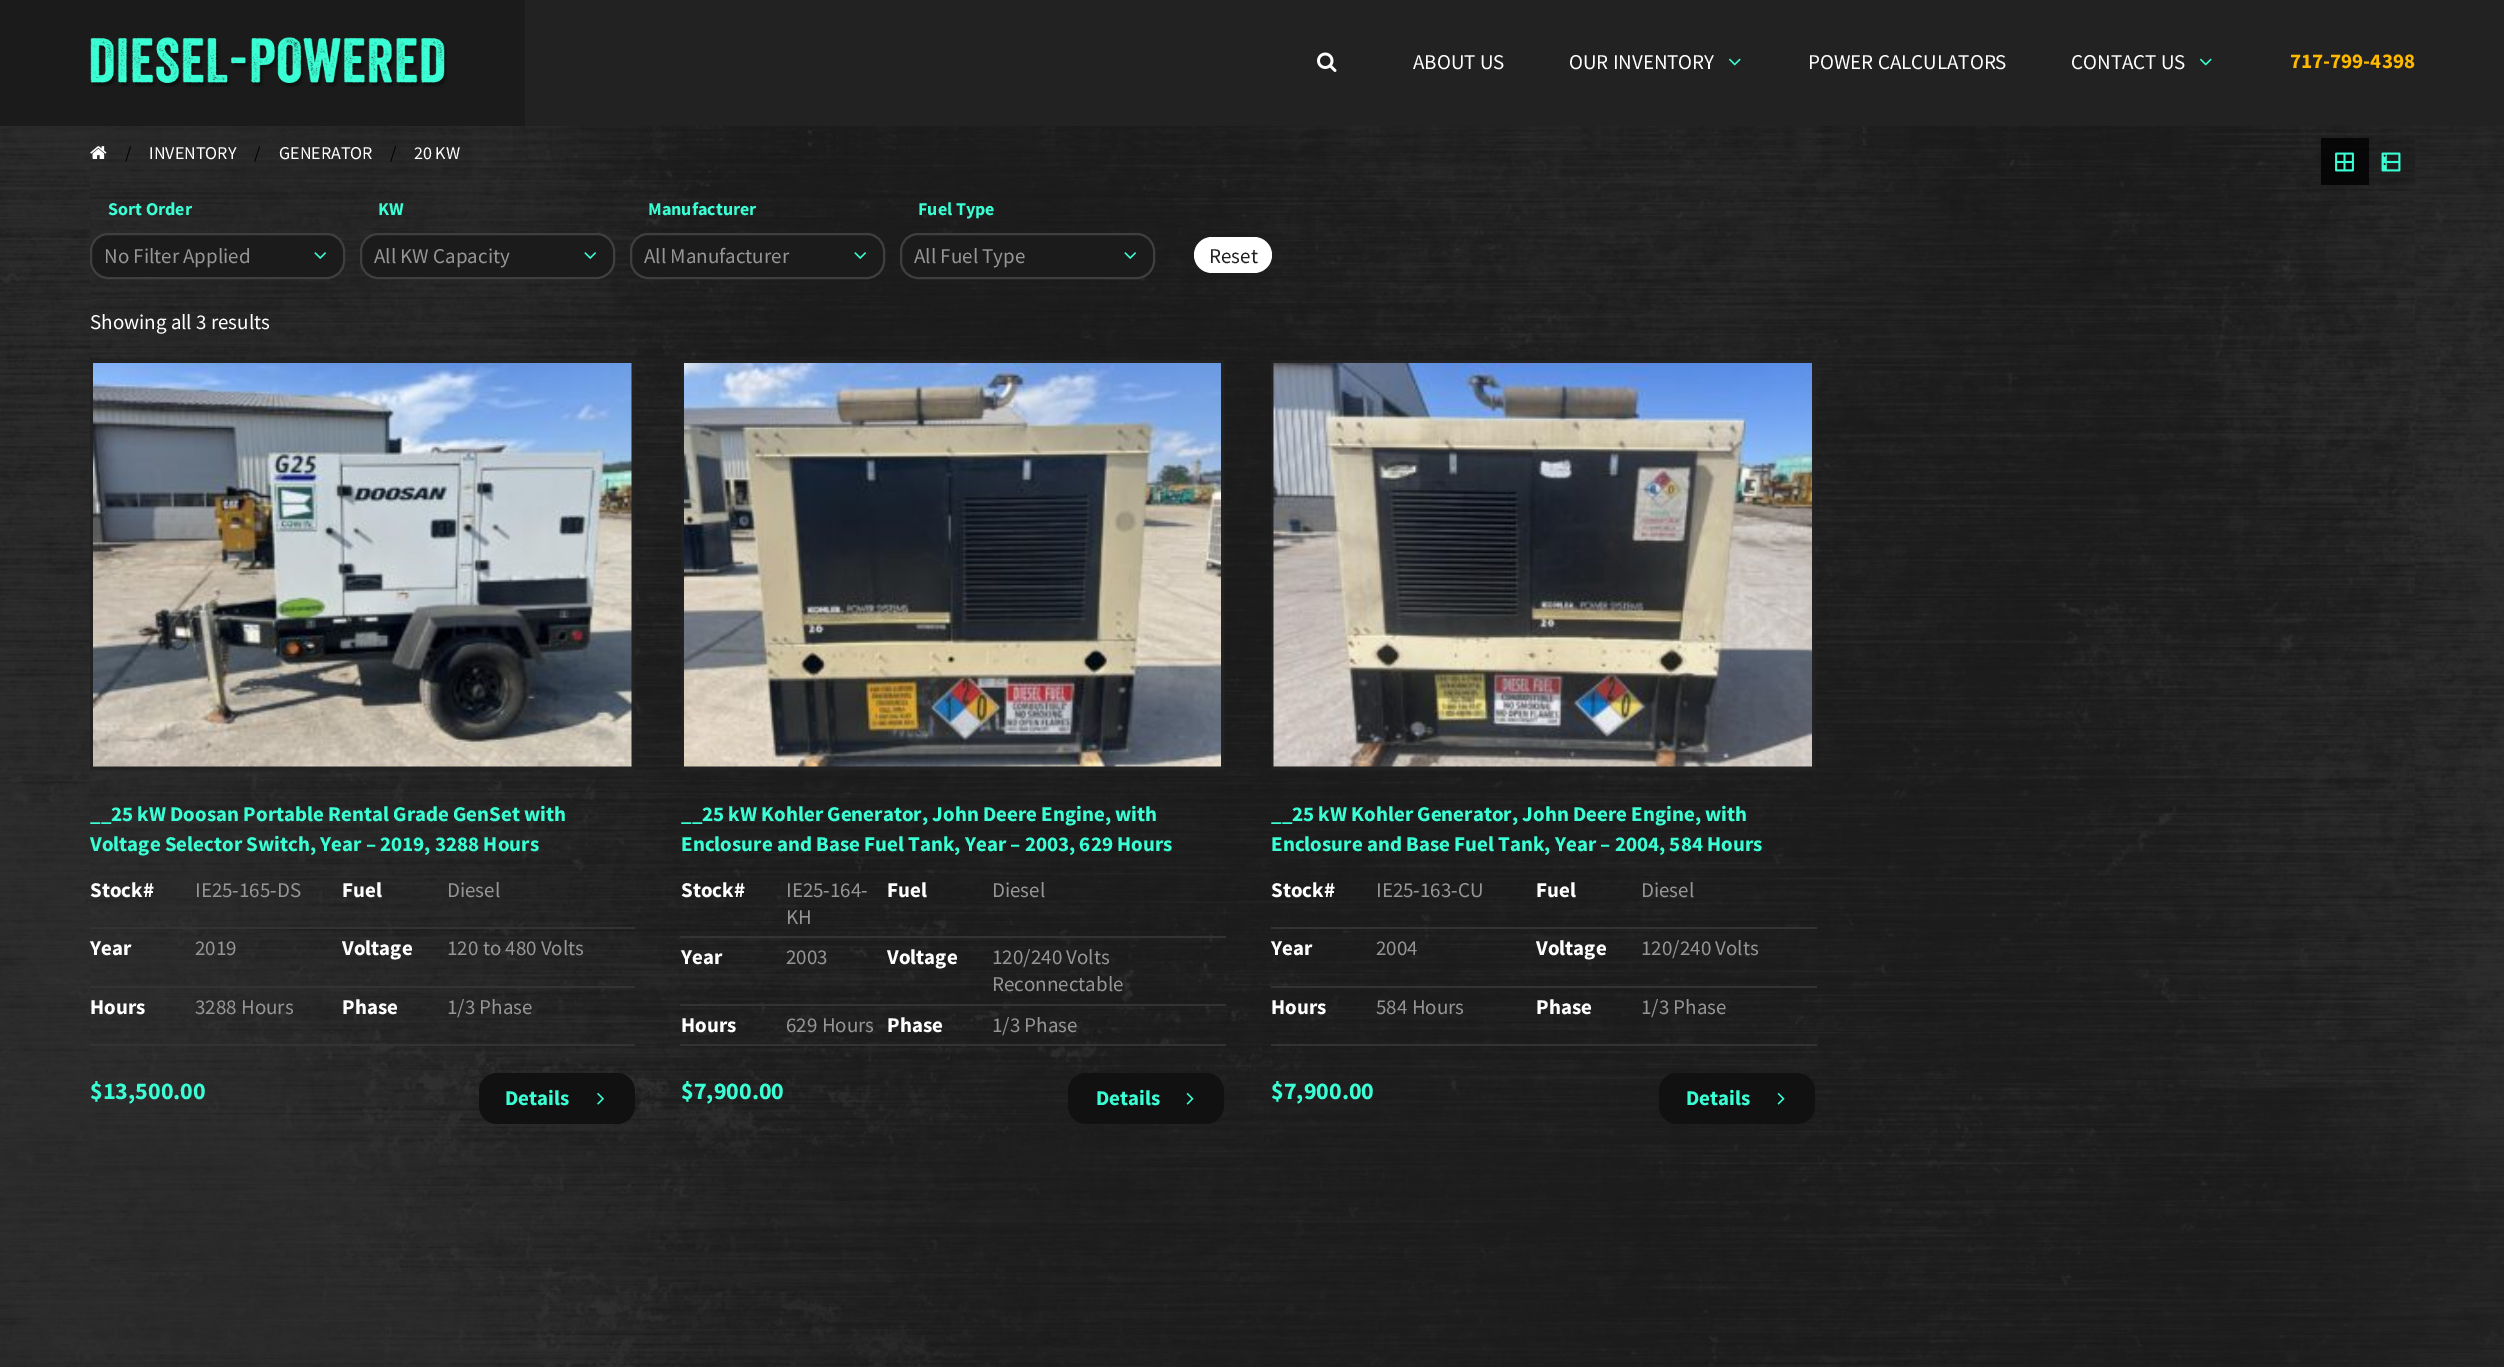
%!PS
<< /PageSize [2504 1367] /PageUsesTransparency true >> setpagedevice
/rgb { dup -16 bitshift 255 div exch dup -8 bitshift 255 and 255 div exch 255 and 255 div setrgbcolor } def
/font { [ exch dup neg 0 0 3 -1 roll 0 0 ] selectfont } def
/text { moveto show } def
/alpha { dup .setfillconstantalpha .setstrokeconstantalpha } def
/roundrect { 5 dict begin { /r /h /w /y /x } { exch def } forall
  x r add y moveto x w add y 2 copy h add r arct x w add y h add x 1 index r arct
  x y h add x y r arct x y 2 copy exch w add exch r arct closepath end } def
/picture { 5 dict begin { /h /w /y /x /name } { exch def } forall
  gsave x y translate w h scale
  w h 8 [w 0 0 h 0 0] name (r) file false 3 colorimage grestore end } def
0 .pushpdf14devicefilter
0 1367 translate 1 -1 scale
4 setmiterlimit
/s1 { /SourceSansPro-Regular 21 font 16#FFFFFF rgb } def
/s2 { /SourceSansPro-Bold 21 font 16#FFBA00 rgb } def
/s3 { /SourceSansPro-Regular 18 font 16#000000 rgb } def
/s4 { /SourceSansPro-Regular 18 font 16#FFFFFF rgb } def
/s5 { /SourceSansPro-Bold 18 font 16#3BFFD4 rgb } def
/s6 { /SourceSansPro-Regular 21 font 16#969595 rgb } def
/s7 { /SourceSansPro-Regular 21 font 16#222222 rgb } def
/s8 { /SourceSansPro-Bold 21 font 16#3BFFD4 rgb } def
/s9 { /SourceSansPro-Bold 21 font 16#FFFFFF rgb } def
/s10 { /SourceSansPro-Bold 24 font 16#3BFFD4 rgb } def
16#222222 rgb
0 0 2504 1367 rectfill
16#1B1B1B rgb
0 0 525 126 rectfill
(pic1.raw) 90 37 357 50 picture
(pic2.raw) 1317 52 20 20 picture
s1
(ABOUT US) 1413 69 text
(OUR INVENTORY) 1569 69 text
(pic3.raw) 1728 58 13 8 picture
(POWER CALCULATORS) 1808 69 text
(CONTACT US) 2071 69 text
(pic3.raw) 2199 58 13 8 picture
s2
(717-799-4398) 2290 68 text
(pic4.raw) 0 126 2504 1241 picture
(pic5.raw) 90 138 2325 1134 picture
(pic6.raw) 90 146 17 13 picture
s3
(/) 125 159 text
s4
(INVENTORY) 149 159 text
s3
(/) 254 159 text
s4
(GENERATOR) 279 159 text
s3
(/) 390 159 text
s4
(20 KW) 414 159 text
0.8 alpha
16#000000 rgb
2321 138 48 47 rectfill
1 alpha
(pic7.raw) 2335 152 19 20 picture
0.1 alpha
2369 138 46 47 rectfill
1 alpha
(pic8.raw) 2381 152 20 20 picture
s5
(Sort Order) 108 215 text
16#1B1B1B rgb
91 234 253 44 17 roundrect gsave fill grestore
16#3F3F3F rgb
2 setlinewidth
stroke
s6
(No Filter Applied) 104 263 text
(pic9.raw) 314 252 12 7 picture
s5
(KW) 378 215 text
16#1B1B1B rgb
361 234 253 44 17 roundrect gsave fill grestore
16#3F3F3F rgb
stroke
s6
(All KW Capacity) 374 263 text
(pic9.raw) 584 252 12 7 picture
s5
(Manufacturer) 648 215 text
16#1B1B1B rgb
631 234 253 44 17 roundrect gsave fill grestore
16#3F3F3F rgb
stroke
s6
(All Manufacturer) 644 263 text
(pic9.raw) 854 252 12 7 picture
s5
(Fuel Type) 918 215 text
16#1B1B1B rgb
901 234 253 44 17 roundrect gsave fill grestore
16#3F3F3F rgb
stroke
s6
(All Fuel Type) 914 263 text
(pic9.raw) 1124 252 12 7 picture
16#FFFFFF rgb
1194 237 78 36 18 roundrect fill
s7
(Reset) 1209 263 text
s1
(Showing all 3 results) 90 329 text
16#222222 rgb
3 setlinewidth
91.5 361.5 542 407 rectstroke
(pic10.raw) 93 363 539 404 picture
s8
(__25 kW Doosan Portable Rental Grade GenSet with) 90 821 text
(Voltage Selector Switch, Year – 2019, 3288 Hours) 90 851 text
s9
(Stock#) 90 897 text
s6
(IE25-165-DS) 195 897 text
s9
(Fuel) 342 897 text
16#333333 rgb
90 927 545 2 rectfill
s6
(Diesel) 447 897 text
s9
(Year) 90 955 text
s6
(2019) 195 955 text
s9
(Voltage) 342 955 text
16#333333 rgb
90 986 545 2 rectfill
s6
(120 to 480 Volts) 447 955 text
s9
(Hours) 90 1014 text
s6
(3288 Hours) 195 1014 text
s9
(Phase) 342 1014 text
16#333333 rgb
90 1044 545 2 rectfill
s6
(1/3 Phase) 447 1014 text
s10
($13,500.00) 90 1099 text
16#111111 rgb
479 1073 156 51 18 roundrect fill
s8
(Details) 505 1105 text
(pic11.raw) 597 1093 7 12 picture
16#222222 rgb
682.5 361.5 540 407 rectstroke
(pic12.raw) 684 363 537 404 picture
s8
(__25 kW Kohler Generator, John Deere Engine, with) 681 821 text
(Enclosure and Base Fuel Tank, Year – 2003, 629 Hours) 681 851 text
s9
(Stock#) 681 897 text
s6
(IE25-164-) 786 897 text
(KH) 786 924 text
s9
(Fuel) 887 897 text
16#333333 rgb
680 936 546 2 rectfill
s6
(Diesel) 992 897 text
s9
(Year) 681 964 text
s6
(2003) 786 964 text
s9
(Voltage) 887 964 text
16#333333 rgb
680 1004 546 2 rectfill
s6
(120/240 Volts) 992 964 text
(Reconnectable) 992 991 text
s9
(Hours) 681 1032 text
s6
(629 Hours) 786 1032 text
s9
(Phase) 887 1032 text
16#333333 rgb
680 1044 546 2 rectfill
s6
(1/3 Phase) 992 1032 text
s10
($7,900.00) 681 1099 text
16#111111 rgb
1068 1073 156 51 18 roundrect fill
s8
(Details) 1096 1105 text
(pic13.raw) 1186 1093 8 12 picture
16#222222 rgb
1272.5 361.5 541 407 rectstroke
(pic14.raw) 1273 363 539 404 picture
s8
(__25 kW Kohler Generator, John Deere Engine, with) 1271 821 text
(Enclosure and Base Fuel Tank, Year – 2004, 584 Hours) 1271 851 text
s9
(Stock#) 1271 897 text
s6
(IE25-163-CU) 1376 897 text
s9
(Fuel) 1536 897 text
16#333333 rgb
1271 927 546 2 rectfill
s6
(Diesel) 1641 897 text
s9
(Year) 1271 955 text
s6
(2004) 1376 955 text
s9
(Voltage) 1536 955 text
16#333333 rgb
1271 986 546 2 rectfill
s6
(120/240 Volts) 1641 955 text
s9
(Hours) 1271 1014 text
s6
(584 Hours) 1376 1014 text
s9
(Phase) 1536 1014 text
16#333333 rgb
1271 1044 546 2 rectfill
s6
(1/3 Phase) 1641 1014 text
s10
($7,900.00) 1271 1099 text
16#111111 rgb
1659 1073 156 51 18 roundrect fill
s8
(Details) 1686 1105 text
(pic13.raw) 1777 1093 8 12 picture
.poppdf14devicefilter showpage
